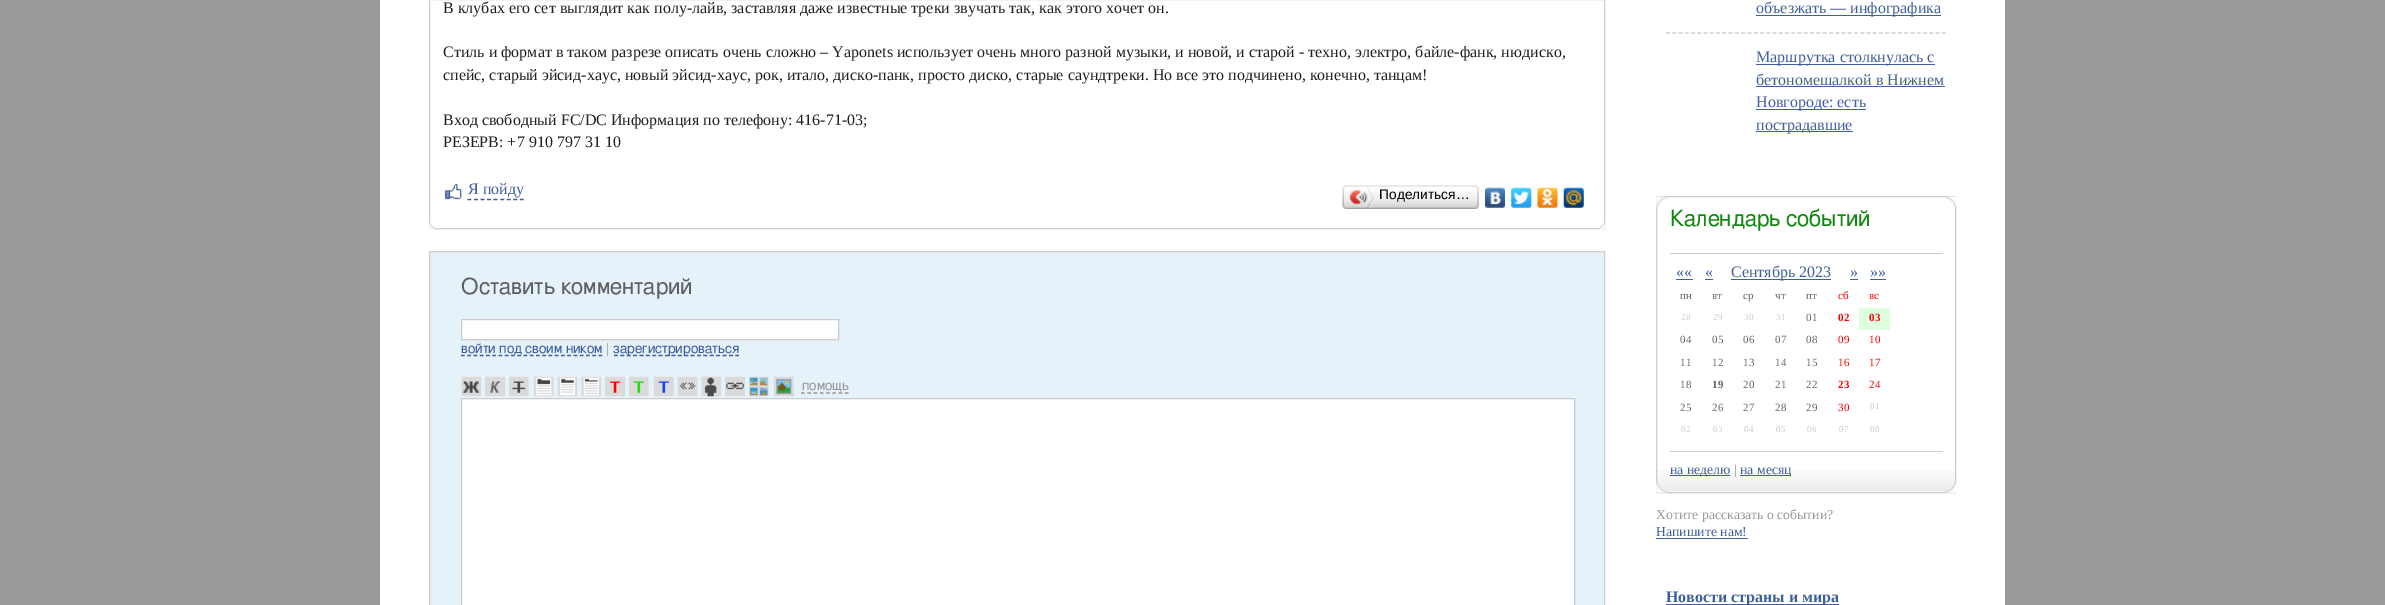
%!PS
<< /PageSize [2385 605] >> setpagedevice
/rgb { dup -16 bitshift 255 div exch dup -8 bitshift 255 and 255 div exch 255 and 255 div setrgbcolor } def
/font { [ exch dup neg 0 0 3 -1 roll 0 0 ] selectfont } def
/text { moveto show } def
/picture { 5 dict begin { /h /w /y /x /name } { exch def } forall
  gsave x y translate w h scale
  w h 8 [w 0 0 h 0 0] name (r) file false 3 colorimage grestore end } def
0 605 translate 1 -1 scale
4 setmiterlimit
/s1 { /LiberationSerif-Regular 16 font 16#202020 rgb } def
/s2 { /LiberationSerif-Regular 16 font 16#3F5F9E rgb } def
/s3 { /LiberationSans-Regular 13.75 font 16#000000 rgb } def
/s4 { /FreeSans-Regular 22.4 font 16#5F5F5F rgb } def
/s5 { /FreeSans-Regular 13.75 font 16#3F5F9E rgb } def
/s6 { /FreeSans-Regular 13.75 font 16#999999 rgb } def
/s7 { /FreeSans-Regular 22.4 font 16#118811 rgb } def
/s8 { /LiberationSerif-Regular 11 font 16#666666 rgb } def
/s9 { /LiberationSerif-Regular 11 font 16#FF0000 rgb } def
/s10 { /LiberationSerif-Regular 9 font 16#CCCCCC rgb } def
/s11 { /LiberationSerif-Bold 11 font 16#FF0000 rgb } def
/s12 { /LiberationSerif-Bold 11 font 16#666666 rgb } def
/s13 { /LiberationSerif-Regular 13.75 font 16#3F5F9E rgb } def
/s14 { /LiberationSerif-Regular 13.75 font 16#999999 rgb } def
/s15 { /LiberationSerif-Bold 16 font 16#3F5F9E rgb } def
16#999999 rgb
0 0 2385 605 rectfill
16#FFFFFF rgb
380 0 1625 605 rectfill
16#CCCCCC rgb
429.5 -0.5 1175 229 rectstroke
s1
(В клубах его сет выглядит как полу-лайв, заставляя даже известные треки звучать так, как этого хочет он.) 443 13 text
(Стиль и формат в таком разрезе описать очень сложно – Yaponets использует очень много разной музыки, и новой, и старой - техно, электро, байле-фанк, нюдиско,) 443 57 text
(спейс, старый эйсид-хаус, новый эйсид-хаус, рок, итало, диско-панк, просто диско, старые саундтреки. Но все это подчинено, конечно, танцам!) 443 80 text
(Вход свободный FC/DC Информация по телефону: 416-71-03;) 443 125 text
(РЕЗЕРВ: +7 910 797 31 10) 443 147 text
(pic1.raw) 444 183 18 17 picture
s2
(Я пойду) 468 194 text
1.2 setlinewidth
[3.75 2.81] 0 setdash
467.5 199.5 moveto 524 199.5 lineto stroke
(pic2.raw) 1346 185 129 24 picture
(pic3.raw) 1342 185 5 24 picture
(pic4.raw) 1350 186 25 22 picture
s3
(Поделиться…) 1379 199 text
(pic5.raw) 1475 185 4 24 picture
(pic6.raw) 1485 187 20 21 picture
(pic7.raw) 1511 187 21 21 picture
(pic8.raw) 1537 187 21 21 picture
(pic9.raw) 1563 187 21 21 picture
(pic10.raw) 428 222 7 7 picture
(pic11.raw) 1598 222 7 7 picture
16#E5F2FA rgb
429.5 251.5 moveto 1604.5 251.5 lineto 1604.5 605.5 lineto 429.5 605.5 lineto closepath gsave fill grestore
16#CCCCCC rgb
1 setlinewidth
[] 0 setdash
stroke
s4
(Оставить комментарий) 461 294 text
16#FFFFFF rgb
461.5 319.5 moveto 838.5 319.5 lineto 838.5 339.5 lineto 461.5 339.5 lineto closepath gsave fill grestore
16#CCCCCC rgb
stroke
16#3F5F9E rgb
1.2 setlinewidth
[3.75 2.5] 0 setdash
461 355.5 moveto 602.5 355.5 lineto stroke
s5
(войти под своим ником) 461 353 text
s6
(|) 606 353 text
16#3F5F9E rgb
[3.75 2.64] 0 setdash
614 355.5 moveto 739 355.5 lineto stroke
(зарегистрироваться) 613 353 text
(pic12.raw) 461 376 20 21 picture
(pic13.raw) 485 376 20 21 picture
(pic14.raw) 509 376 20 21 picture
(pic15.raw) 534 376 20 21 picture
(pic16.raw) 557 376 21 21 picture
(pic17.raw) 581 376 20 21 picture
(pic18.raw) 605 376 20 21 picture
(pic19.raw) 629 376 20 21 picture
(pic20.raw) 654 376 20 21 picture
(pic21.raw) 677 376 21 21 picture
(pic22.raw) 701 376 20 21 picture
(pic23.raw) 725 376 20 21 picture
(pic24.raw) 749 376 20 21 picture
[3.75 1.66] 0 setdash
774 394.5 moveto 794 394.5 lineto stroke
(pic25.raw) 774 376 20 21 picture
s6
(помощь) 802 390 text
[3.75 2.5] 0 setdash
801 393 moveto 849 393 lineto stroke
16#FFFFFF rgb
461.5 398.5 moveto 1574.5 398.5 lineto 1574.5 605.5 lineto 461.5 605.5 lineto closepath gsave fill grestore
16#CCCCCC rgb
1 setlinewidth
[] 0 setdash
stroke
16#3F5F9E rgb
1756 15 185 1 rectfill
s2
(объезжать — инфографика) 1756 13 text
16#CCCCCC rgb
1.2 setlinewidth
[3.75 2.52] 0 setdash
1666 33 moveto 1946 33 lineto stroke
16#3F5F9E rgb
1756 64 179 1 rectfill
(Маршрутка столкнулась с) 1756 62 text
(бетономешалкой в Нижнем) 1756 85 text
1756 86 189 1 rectfill
1756 109 110 1 rectfill
(Новгороде: есть) 1756 107 text
1756 131 97 1 rectfill
(пострадавшие) 1756 130 text
(pic26.raw) 1657 470 300 22 picture
16#CCCCCC rgb
1 setlinewidth
[] 0 setdash
1656.5 196.5 299 296 rectstroke
(pic27.raw) 1656 196 12 12 picture
(pic28.raw) 1945 196 12 12 picture
s7
(Календарь событий) 1670 226 text
16#CCCCCC rgb
1670 253 273 1 rectfill
s2
(««) 1676 277 text
1676 279 17 1 rectfill
(«) 1705 277 text
1705 279 8 1 rectfill
1731 279 100 1 rectfill
(Сентябрь 2023) 1731 277 text
(») 1850 277 text
1850 279 8 1 rectfill
(»») 1870 277 text
1870 279 16 1 rectfill
s8
(пн) 1680 299 text
(вт) 1712 299 text
(ср) 1743 299 text
(чт) 1775 299 text
(пт) 1806 299 text
s9
(сб) 1838 299 text
(вс) 1869 299 text
s10
(28) 1681 320 text
(29) 1713 320 text
(30) 1744 320 text
(31) 1776 320 text
s8
(01) 1806 321 text
s11
(02) 1838 321 text
16#DDFFDD rgb
1859 308 31 22 rectfill
s11
(03) 1869 321 text
s8
(04) 1680 343 text
(05) 1712 343 text
(06) 1743 343 text
(07) 1775 343 text
(08) 1806 343 text
s9
(09) 1838 343 text
(10) 1869 343 text
s8
(11) 1680 366 text
(12) 1712 366 text
(13) 1743 366 text
(14) 1775 366 text
(15) 1806 366 text
s9
(16) 1838 366 text
(17) 1869 366 text
s8
(18) 1680 388 text
s12
(19) 1712 388 text
s8
(20) 1743 388 text
(21) 1775 388 text
(22) 1806 388 text
s11
(23) 1838 388 text
s9
(24) 1869 388 text
s8
(25) 1680 411 text
(26) 1712 411 text
(27) 1743 411 text
(28) 1775 411 text
(29) 1806 411 text
s9
(30) 1838 411 text
s10
(01) 1870 409 text
(02) 1681 432 text
(03) 1713 432 text
(04) 1744 432 text
(05) 1776 432 text
(06) 1807 432 text
(07) 1839 432 text
(08) 1870 432 text
1670 451 273 1 rectfill
16#3F5F9E rgb
1670 475 60 1 rectfill
s13
(на неделю) 1670 474 text
s14
(|) 1734 474 text
16#3F5F9E rgb
1740 475 51 1 rectfill
(на месяц) 1740 474 text
(pic29.raw) 1656 481 12 12 picture
(pic30.raw) 1945 481 12 12 picture
s14
(Хотите рассказать о событии?) 1656 519 text
s13
(Напишите нам!) 1656 536 text
1656 538 92 1 rectfill
1666 604 173 1 rectfill
s15
(Новости страны и мира) 1666 602 text
showpage
